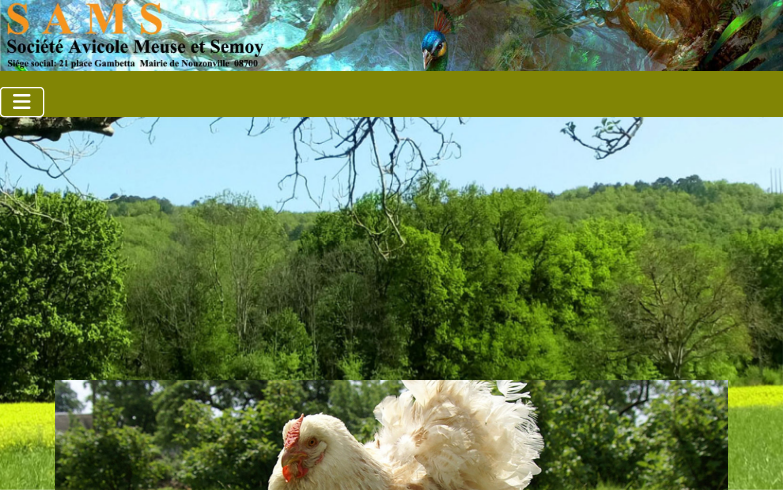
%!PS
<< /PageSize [783 490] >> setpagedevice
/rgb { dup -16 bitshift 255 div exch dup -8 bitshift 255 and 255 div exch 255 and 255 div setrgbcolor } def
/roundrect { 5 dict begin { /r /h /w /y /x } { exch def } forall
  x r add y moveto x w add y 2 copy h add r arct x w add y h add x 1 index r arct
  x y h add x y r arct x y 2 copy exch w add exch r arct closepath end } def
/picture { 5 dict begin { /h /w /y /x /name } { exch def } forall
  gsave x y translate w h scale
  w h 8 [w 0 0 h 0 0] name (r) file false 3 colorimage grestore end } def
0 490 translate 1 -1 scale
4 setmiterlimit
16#FFFFFF rgb
0 0 783 490 rectfill
(pic1.raw) 0 117 783 373 picture
16#818505 rgb
0 71 783 46 rectfill
(pic2.raw) 0 0 783 71 picture
16#FFFFFF rgb
0.5 87.5 43 29 3.5 roundrect stroke
(pic3.raw) 13 94 18 15 picture
(pic4.raw) 55 380 673 110 picture
showpage
